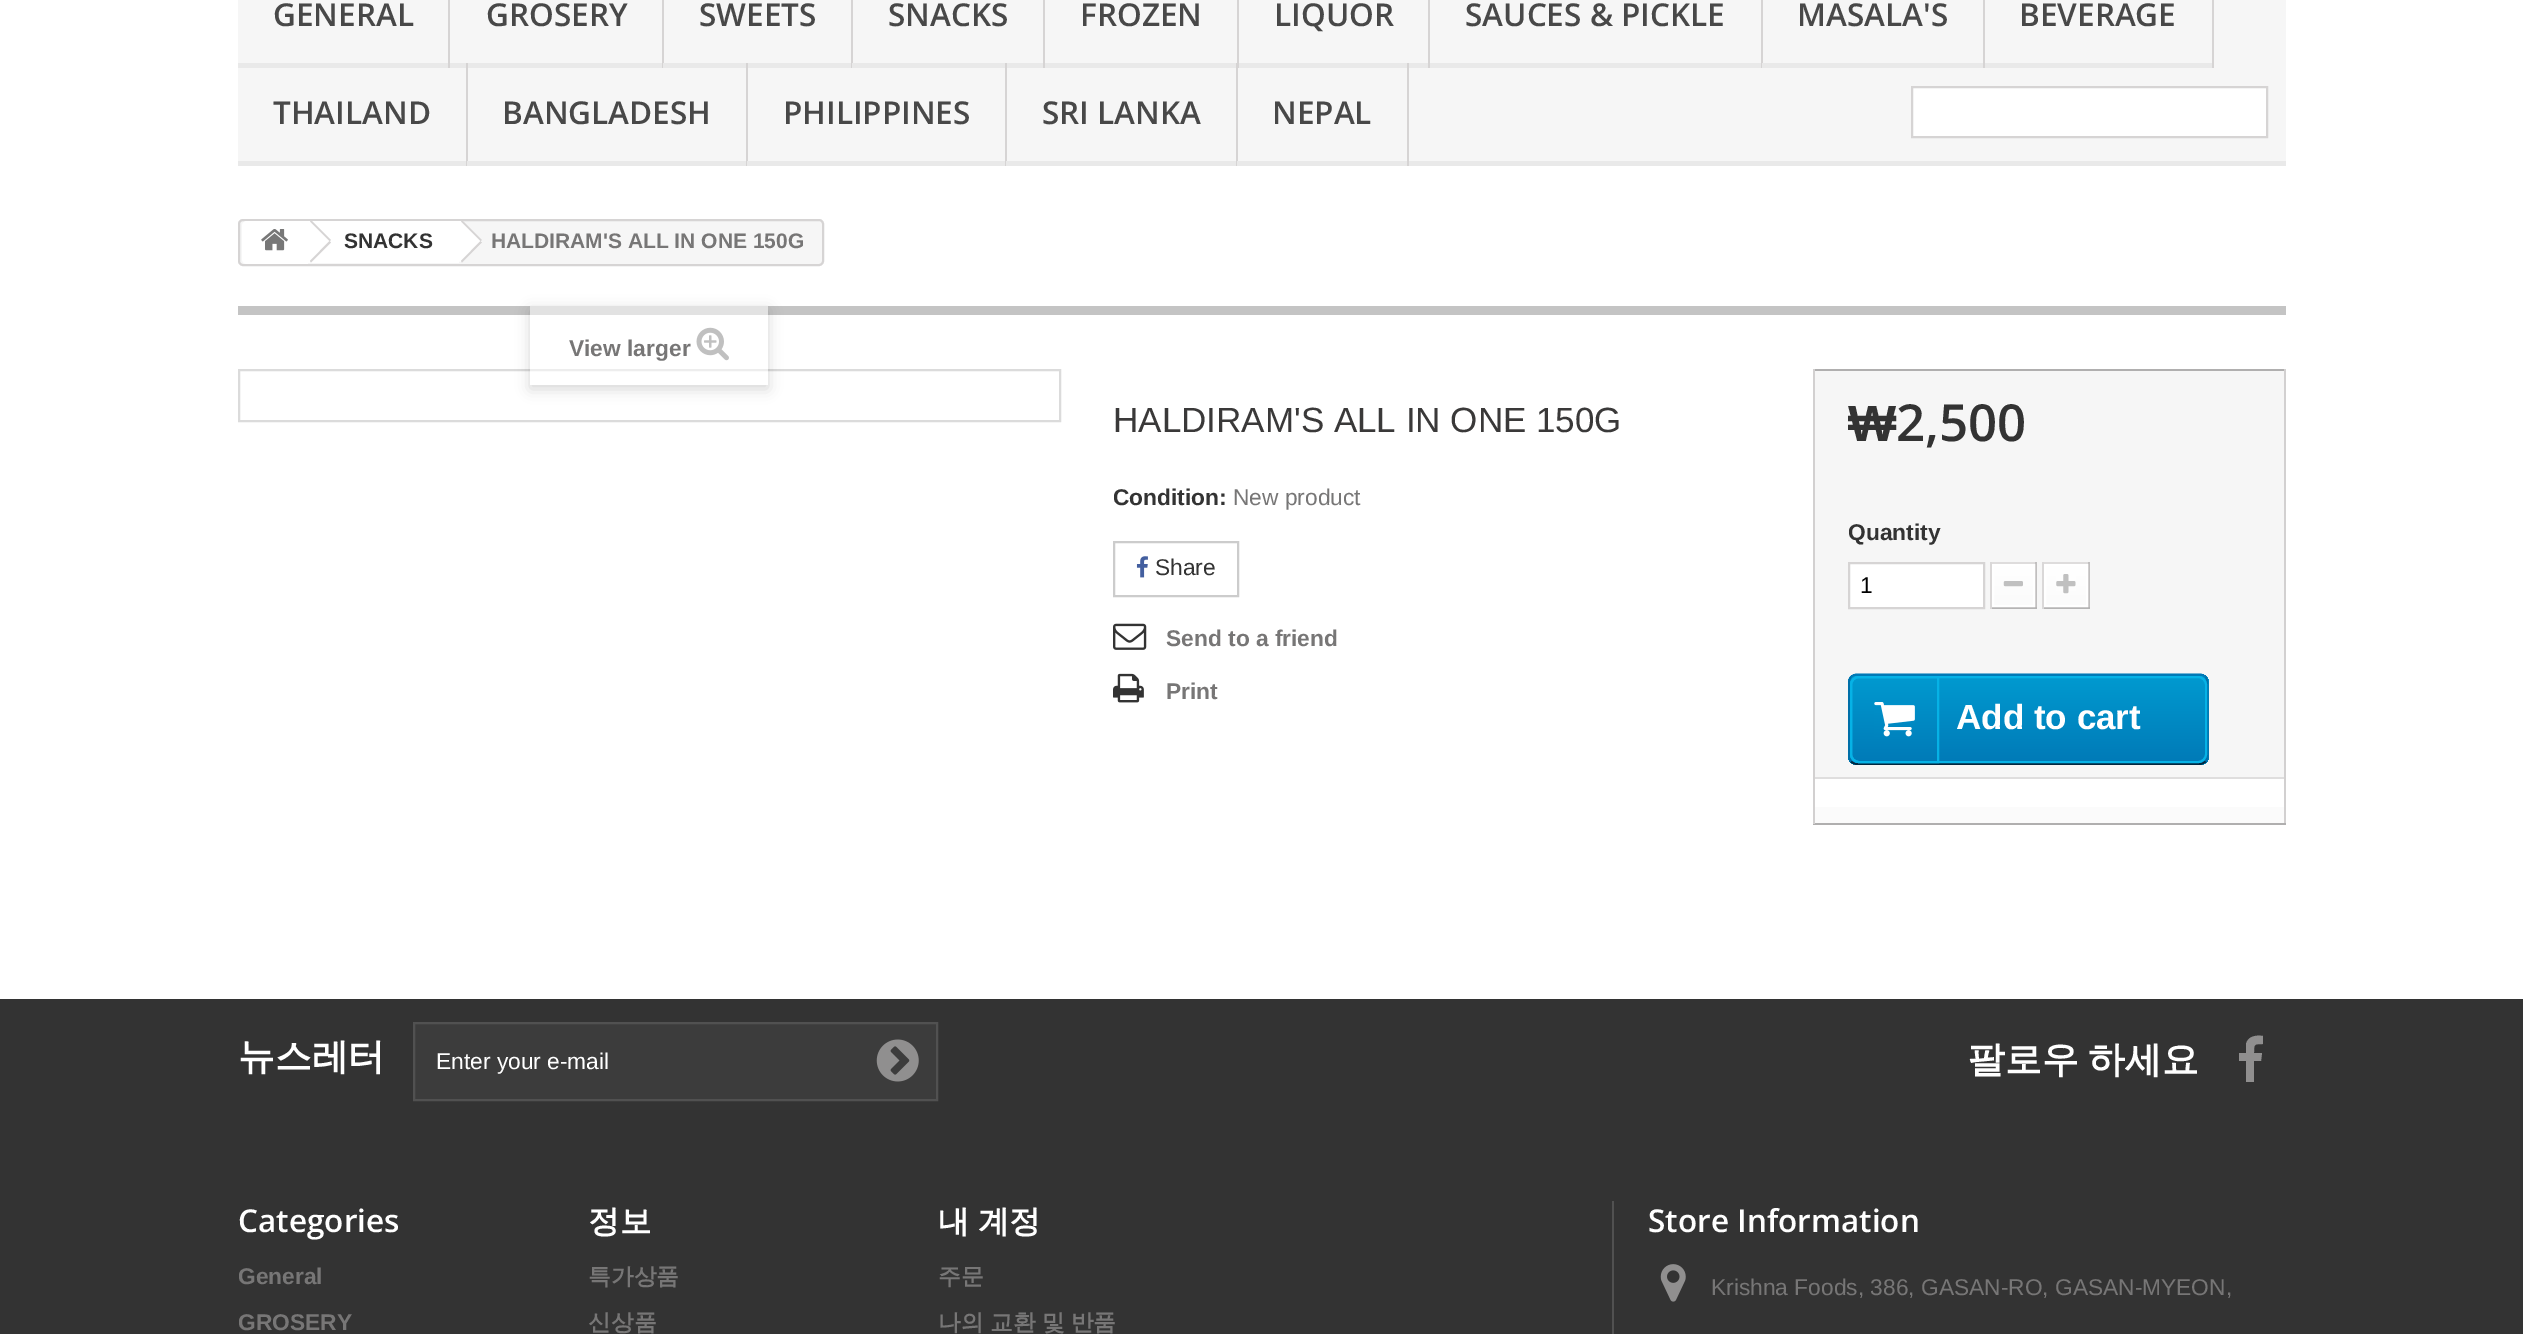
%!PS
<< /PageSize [2523 1334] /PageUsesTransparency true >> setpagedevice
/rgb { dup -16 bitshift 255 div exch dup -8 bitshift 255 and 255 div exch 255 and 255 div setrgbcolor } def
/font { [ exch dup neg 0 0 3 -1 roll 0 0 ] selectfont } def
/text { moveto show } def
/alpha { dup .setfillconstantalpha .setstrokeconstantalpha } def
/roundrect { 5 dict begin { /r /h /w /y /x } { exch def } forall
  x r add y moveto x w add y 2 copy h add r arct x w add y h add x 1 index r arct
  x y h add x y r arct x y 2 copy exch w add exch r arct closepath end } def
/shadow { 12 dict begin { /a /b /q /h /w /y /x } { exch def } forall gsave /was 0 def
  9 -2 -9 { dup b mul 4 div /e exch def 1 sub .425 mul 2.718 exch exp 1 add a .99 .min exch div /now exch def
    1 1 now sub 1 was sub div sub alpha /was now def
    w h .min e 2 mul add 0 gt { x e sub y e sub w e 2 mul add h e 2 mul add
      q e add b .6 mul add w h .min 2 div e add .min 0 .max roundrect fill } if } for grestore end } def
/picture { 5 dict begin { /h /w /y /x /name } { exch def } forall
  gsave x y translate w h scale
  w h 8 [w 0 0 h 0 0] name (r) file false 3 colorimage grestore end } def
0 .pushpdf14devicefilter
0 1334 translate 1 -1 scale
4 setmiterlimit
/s1 { /OpenSans-SemiBold 31.5 font 16#484848 rgb } def
/s2 { /LiberationSans-Bold 21 font 16#333333 rgb } def
/s3 { /LiberationSans-Bold 21 font 16#777676 rgb } def
/s4 { /LiberationSans-Bold 22.75 font 16#777676 rgb } def
/s5 { /LiberationSans-Regular 35 font 16#3A3939 rgb } def
/s6 { /LiberationSans-Bold 22.75 font 16#333333 rgb } def
/s7 { /LiberationSans-Regular 22.75 font 16#777676 rgb } def
/s8 { /LiberationSans-Regular 22.75 font 16#333333 rgb } def
/s9 { /LiberationSans-Bold 51 font 16#333333 rgb } def
/s10 { /OpenSans-SemiBold 51 font 16#333333 rgb } def
/s11 { /LiberationSans-Regular 22.75 font 16#000000 rgb } def
/s12 { /LiberationSans-Bold 35 font 16#FFFFFF rgb } def
/s13 { /WenQuanYiZenHei-Bold 36.75 font 16#FFFFFF rgb } def
/s14 { /LiberationSans-Regular 22.75 font 16#FFFFFF rgb } def
/s15 { /OpenSans-SemiBold 31.5 font 16#FFFFFF rgb } def
/s16 { /WenQuanYiZenHei-Bold 31.5 font 16#FFFFFF rgb } def
/s17 { /WenQuanYiZenHei-Bold 22.75 font 16#777676 rgb } def
16#FFFFFF rgb
0 0 2523 1334 rectfill
16#F6F6F6 rgb
238 0 2048 161 rectfill
16#E9E9E9 rgb
238 161 2048 5 rectfill
16#D6D4D4 rgb
448 0 2 68 rectfill
16#E9E9E9 rgb
238 63 210 5 rectfill
s1
(GENERAL) 273 26 text
16#D6D4D4 rgb
662 0 2 68 rectfill
16#E9E9E9 rgb
450 63 212 5 rectfill
s1
(GROSERY) 486 26 text
16#D6D4D4 rgb
851 0 2 68 rectfill
16#E9E9E9 rgb
663 63 188 5 rectfill
s1
(SWEETS) 699 26 text
16#D6D4D4 rgb
1043 0 2 68 rectfill
16#E9E9E9 rgb
852 63 191 5 rectfill
s1
(SNACKS) 888 26 text
16#D6D4D4 rgb
1237 0 2 68 rectfill
16#E9E9E9 rgb
1045 63 192 5 rectfill
s1
(FROZEN) 1080 26 text
16#D6D4D4 rgb
1428 0 2 68 rectfill
16#E9E9E9 rgb
1239 63 189 5 rectfill
s1
(LIQUOR) 1274 26 text
16#D6D4D4 rgb
1761 0 2 68 rectfill
16#E9E9E9 rgb
1430 63 331 5 rectfill
s1
(SAUCES & PICKLE) 1465 26 text
16#D6D4D4 rgb
1983 0 2 68 rectfill
16#E9E9E9 rgb
1762 63 221 5 rectfill
s1
(MASALA'S) 1797 26 text
16#D6D4D4 rgb
2212 0 2 68 rectfill
16#E9E9E9 rgb
1985 63 227 5 rectfill
s1
(BEVERAGE) 2019 26 text
16#D6D4D4 rgb
466 63 2 103 rectfill
s1
(THAILAND) 273 124 text
16#D6D4D4 rgb
746 63 2 103 rectfill
16#E9E9E9 rgb
467 161 1 5 rectfill
s1
(BANGLADESH) 502 124 text
16#D6D4D4 rgb
1005 63 2 103 rectfill
16#E9E9E9 rgb
747 161 1 5 rectfill
s1
(PHILIPPINES) 783 124 text
16#D6D4D4 rgb
1236 63 2 103 rectfill
16#E9E9E9 rgb
1006 161 1 5 rectfill
s1
(SRI LANKA) 1042 124 text
16#D6D4D4 rgb
1407 63 2 103 rectfill
16#E9E9E9 rgb
1237 161 1 5 rectfill
s1
(NEPAL) 1272 124 text
16#FFFFFF rgb
1912 87 moveto 2267 87 lineto 2267 137 lineto 1912 137 lineto closepath gsave fill grestore
16#D6D4D4 rgb
2 setlinewidth
stroke
16#F6F6F6 rgb
239 220 584 45 4 roundrect gsave fill grestore
16#D6D4D4 rgb
stroke
16#FFFFFF rgb
247 221 moveto 308 221 lineto 308 264 lineto 247 264 lineto 244 264 242 262 242 259 curveto 242 226 lineto 242 223 244 221 247 221 curveto closepath fill
(pic1.raw) 261 229 27 22 picture
308 221 151 42 rectfill
16#D6D4D4 rgb
312 221 moveto 331 240 lineto 329.5 241 lineto 310 221.5 lineto 310.5 221 lineto closepath 329.5 241 moveto 331 242.5 lineto 311 262.5 lineto 310 261 lineto closepath fill
s2
(SNACKS) 344 248 text
16#FFFFFF rgb
463 221 moveto 458 221 lineto 441 239 lineto 440 240 440 242 441 244 curveto 458 261 lineto 460 262 462 262 463 261 curveto 481 244 lineto 482 242 482 240 481 239 curveto closepath fill
16#D6D4D4 rgb
463 221 moveto 482 240 lineto 480.5 241 lineto 461 221.5 lineto 461.5 221 lineto closepath 480.5 241 moveto 482 242.5 lineto 462 262.5 lineto 461 261 lineto closepath fill
s3
(HALDIRAM'S ALL IN ONE 150G) 491 248 text
16#C4C4C4 rgb
238 306 2048 9 rectfill
16#DBDBDB rgb
239 370 821 51 rectstroke
gsave
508 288 moveto 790 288 lineto 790 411 lineto 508 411 lineto closepath 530 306 moveto 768 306 lineto 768 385 lineto 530 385 lineto closepath eoclip newpath
16#000000 rgb
530 310 238 79 0 7 0.16 shadow
grestore
0.5 alpha
16#FFFFFF rgb
530 306 238 71 rectfill
1 alpha
s4
(View larger) 569 356 text
(pic2.raw) 696 327 33 34 picture
s5
(HALDIRAM'S ALL IN ONE 150G) 1113 432 text
s6
(Condition:) 1113 505 text
s7
(New product) 1233 505 text
16#CCCCCC rgb
1114 542 124 54 rectstroke
(pic3.raw) 1136 556 12 22 picture
s8
(Share) 1155 575 text
(pic4.raw) 1113 623 34 27 picture
s4
(Send to a friend) 1166 646 text
(pic5.raw) 1113 673 31 30 picture
(Print) 1166 699 text
16#F6F6F6 rgb
1815 371 469 406 rectfill
16#B0AFAF rgb
1813 369 473 2 rectfill
16#D2D0D0 rgb
2284 369 2 455 rectfill
16#B0AFAF rgb
1813 823 473 2 rectfill
16#D2D0D0 rgb
1813 369 2 455 rectfill
s9
(₩) 1848 441 text
s10
(2,500) 1896 441 text
s6
(Quantity) 1848 540 text
16#FFFFFF rgb
1849 563 moveto 1984 563 lineto 1984 608 lineto 1849 608 lineto closepath gsave fill grestore
16#D6D4D4 rgb
stroke
s11
(1) 1860 593 text
16#DEDCDC rgb
1990 562 47 2 rectfill
16#C1BFBF rgb
2035 562 2 47 rectfill
16#B5B4B4 rgb
1990 607 47 2 rectfill
16#DAD8D8 rgb
1990 562 2 47 rectfill
gsave 1994 566 moveto 2033 566 lineto 2033 605 lineto 1994 605 lineto closepath clip newpath
<< /ShadingType 2 /ColorSpace /DeviceRGB /Coords [2013 565 2013 606] /Extend [true true] /Function << /FunctionType 2 /Domain [0 1] /C0 [1 1 1] /C1 [0.984 0.984 0.984] /N 1 >> >> shfill grestore
16#FFFFFF rgb
1993 565 41 41 rectstroke
(pic6.raw) 2003 581 20 6 picture
16#DEDCDC rgb
2042 562 48 2 rectfill
16#C1BFBF rgb
2088 562 2 47 rectfill
16#B5B4B4 rgb
2042 607 48 2 rectfill
16#DAD8D8 rgb
2042 562 2 47 rectfill
gsave 2046 566 moveto 2086 566 lineto 2086 605 lineto 2046 605 lineto closepath clip newpath
<< /ShadingType 2 /ColorSpace /DeviceRGB /Coords [2066 565 2066 606] /Extend [true true] /Function << /FunctionType 2 /Domain [0 1] /C0 [1 1 1] /C1 [0.984 0.984 0.984] /N 1 >> >> shfill grestore
16#FFFFFF rgb
2045 565 42 41 rectstroke
(pic7.raw) 2056 574 20 20 picture
gsave
1848 674 361 91 9 roundrect clip newpath
gsave 1848 674 moveto 2209 674 lineto 2209 676 lineto 1848 676 lineto closepath clip newpath
<< /ShadingType 2 /ColorSpace /DeviceRGB /Coords [2028 588 2028 676] /Extend [true true] /Function << /FunctionType 2 /Domain [0 1] /C0 [0 0.604 0.816] /C1 [0 0.478 0.718] /N 1 >> >> shfill grestore
gsave 1848 676 moveto 2209 676 lineto 2209 763 lineto 1848 763 lineto closepath clip newpath
<< /ShadingType 2 /ColorSpace /DeviceRGB /Coords [2028 676 2028 763] /Extend [true true] /Function << /FunctionType 2 /Domain [0 1] /C0 [0 0.604 0.816] /C1 [0 0.478 0.718] /N 1 >> >> shfill grestore
gsave 1848 763 moveto 2209 763 lineto 2209 765 lineto 1848 765 lineto closepath clip newpath
<< /ShadingType 2 /ColorSpace /DeviceRGB /Coords [2028 763 2028 851] /Extend [true true] /Function << /FunctionType 2 /Domain [0 1] /C0 [0 0.604 0.816] /C1 [0 0.478 0.718] /N 1 >> >> shfill grestore
grestore
16#0079B6 rgb
1.8 setlinewidth
1851 677 moveto 1852.5 675.5 1854.5 674.5 1857 674.5 curveto 2200 674.5 lineto 2202 674.5 2204 675.5 2205.5 677 curveto stroke
16#006FA8 rgb
2205.5 677 moveto 2207 678.5 2207.5 680.5 2207.5 682.5 curveto 2207.5 756 lineto 2207.5 758 2207 760 2205.5 761.5 curveto stroke
16#012740 rgb
2205.5 761.5 moveto 2204 763 2202 764 2200 764 curveto 1857 764 lineto 1854.5 764 1852.5 763 1851 761.5 curveto stroke
16#006FA8 rgb
1851 761.5 moveto 1849.5 760 1849 758 1849 756 curveto 1849 682.5 lineto 1849 680.5 1849.5 678.5 1851 677 curveto stroke
16#06B2E6 rgb
2 setlinewidth
1851 677 355 85 8 roundrect stroke
1859 677 moveto 1938 677 lineto 1938 762 lineto 1859 762 lineto 1854.5 762 1851 758.5 1851 754 curveto 1851 685 lineto 1851 680.5 1854.5 677 1859 677 curveto closepath stroke
(pic8.raw) 1874 702 41 35 picture
s12
(Add to cart) 1956 729 text
gsave 1815 807 moveto 2284 807 lineto 2284 823 lineto 1815 823 lineto closepath clip newpath
<< /ShadingType 2 /ColorSpace /DeviceRGB /Coords [2049 779 2049 823] /Extend [true true] /Function << /FunctionType 2 /Domain [0 1] /C0 [1 1 1] /C1 [0.984 0.984 0.984] /N 1 >> >> shfill grestore
16#DFDEDE rgb
1815 777 469 2 rectfill
16#333333 rgb
0 999 2523 335 rectfill
s13
(뉴스레터) 238 1069 text
16#3C3C3C rgb
414 1023 moveto 937 1023 lineto 937 1100 lineto 414 1100 lineto closepath gsave fill grestore
16#515151 rgb
stroke
s14
(Enter your e-mail) 436 1069 text
(pic9.raw) 876 1039 43 43 picture
/WenQuanYiZenHei-Bold 36.75 font
1968 1072 moveto -1 0 32 (팔로우 하세요) widthshow
16#908F8F rgb
2263 1036 moveto 2256 1035 2248 1036 2246 1044 curveto 2246 1053 lineto 2239 1053 lineto 2239 1061 lineto 2246 1061 lineto 2246 1082 lineto 2254 1082 lineto 2254 1061 lineto 2261 1061 lineto 2262 1053 lineto 2254 1053 lineto 2254 1044 2254 1044 2263 1044 curveto closepath fill
s15
(Categories) 238 1232 text
s4
(General) 238 1284 text
(GROSERY) 238 1330 text
s16
(정보) 588 1232 text
s17
(특가상품) 588 1284 text
(신상품) 588 1330 text
/WenQuanYiZenHei-Bold 31.5 font
16#FFFFFF rgb
938 1232 moveto -1 0 32 (내 계정) widthshow
s17
(주문) 938 1284 text
938 1330 moveto -0.5 0 32 (나의 교환 및 반품) widthshow
16#515151 rgb
1612 1201 2 133 rectfill
s15
(Store Information) 1648 1232 text
(pic10.raw) 1660 1264 26 38 picture
s7
(Krishna Foods, 386, GASAN-RO, GASAN-MYEON,) 1711 1295 text
.poppdf14devicefilter showpage
